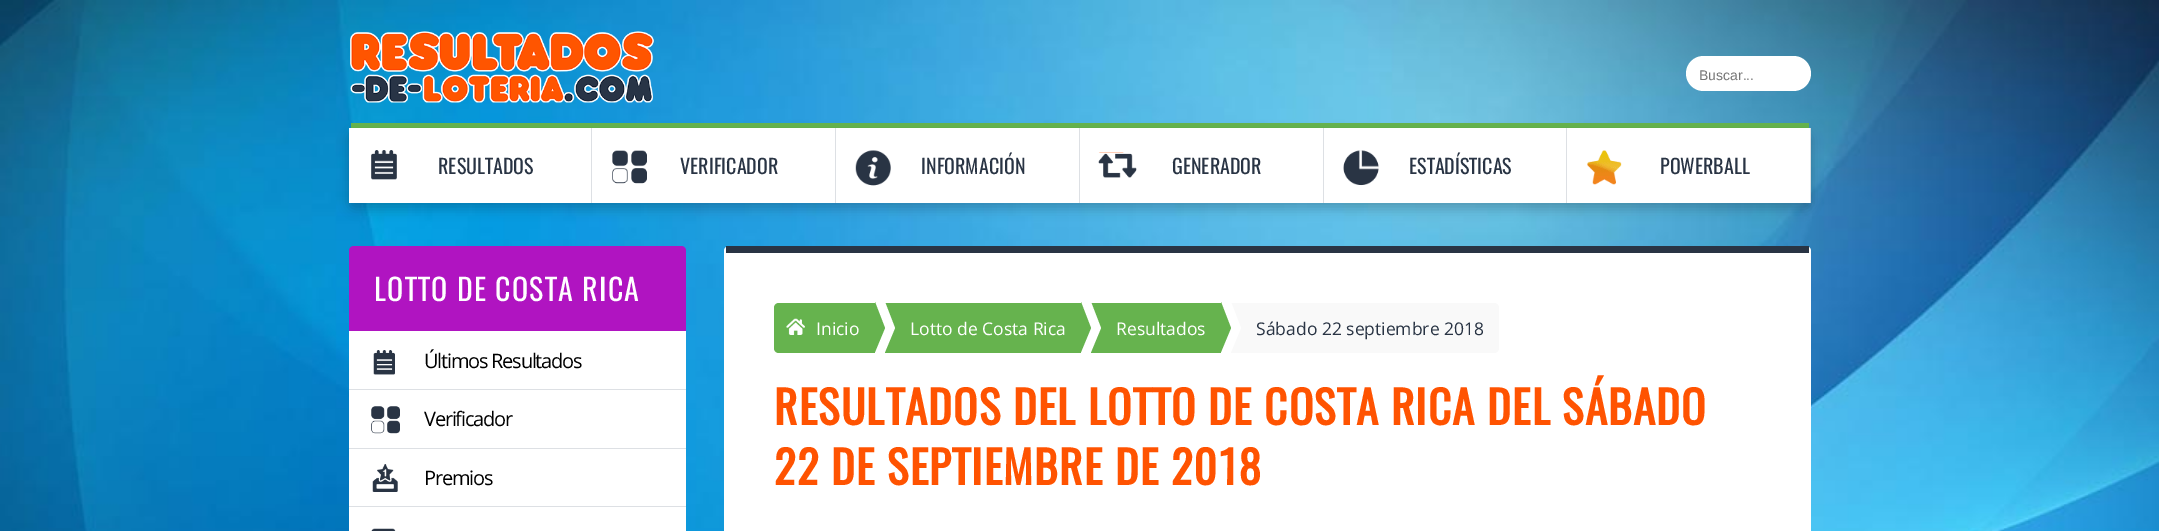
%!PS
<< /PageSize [2159 531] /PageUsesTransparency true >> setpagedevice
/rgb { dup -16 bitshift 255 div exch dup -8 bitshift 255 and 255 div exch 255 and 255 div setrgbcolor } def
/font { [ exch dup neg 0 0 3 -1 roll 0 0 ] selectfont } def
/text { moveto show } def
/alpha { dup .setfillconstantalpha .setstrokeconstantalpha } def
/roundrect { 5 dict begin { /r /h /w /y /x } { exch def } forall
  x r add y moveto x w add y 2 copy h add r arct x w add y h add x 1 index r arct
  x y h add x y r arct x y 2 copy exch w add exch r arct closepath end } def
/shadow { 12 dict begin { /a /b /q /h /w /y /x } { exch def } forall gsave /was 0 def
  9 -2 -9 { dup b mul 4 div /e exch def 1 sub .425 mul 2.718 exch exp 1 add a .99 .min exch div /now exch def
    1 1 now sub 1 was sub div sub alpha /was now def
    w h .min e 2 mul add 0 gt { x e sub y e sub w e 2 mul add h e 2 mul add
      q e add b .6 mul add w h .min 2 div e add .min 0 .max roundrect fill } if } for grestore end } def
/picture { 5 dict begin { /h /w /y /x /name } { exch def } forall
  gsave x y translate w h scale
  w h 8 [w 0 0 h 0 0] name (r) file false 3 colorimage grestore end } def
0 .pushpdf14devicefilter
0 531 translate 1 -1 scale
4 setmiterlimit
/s1 { /LiberationSans-Regular 14 font 16#757575 rgb } def
/s2 { /Oswald-Regular 20 font 16#293444 rgb } def
/s3 { /OpenSans-Regular 17.5 font 16#FFFFFF rgb } def
/s4 { /OpenSans-Regular 17.5 font 16#293444 rgb } def
16#FFFFFF rgb
0 0 2159 531 rectfill
(pic1.raw) 0 0 2159 531 picture
(pic2.raw) 350 31 304 72 picture
1686 56 125 35 17.5 roundrect fill
s1
(Buscar...) 1699 80 text
16#66B34E rgb
351 123 1458 5 rectfill
16#000000 rgb
349 134 1462 75 5 5.5 0.2 shadow
16#FFFFFF rgb
349 128 486 75 rectfill
16#DDE0E4 rgb
591 128 1 75 rectfill
(pic3.raw) 371 150 26 30 picture
s2
(RESULTADOS) 438 174 text
16#DDE0E4 rgb
835 128 1 75 rectfill
(pic4.raw) 612 150 35 34 picture
s2
(VERIFICADOR) 680 174 text
16#FFFFFF rgb
836 128 243 75 rectfill
16#DDE0E4 rgb
1079 128 1 75 rectfill
(pic5.raw) 855 150 36 36 picture
s2
(INFORMACIÓN) 921 174 text
16#FFFFFF rgb
1080 128 243 75 rectfill
16#DDE0E4 rgb
1323 128 1 75 rectfill
(pic6.raw) 1098 152 39 26 picture
s2
(GENERADOR) 1172 174 text
16#FFFFFF rgb
1324 128 486 75 rectfill
16#DDE0E4 rgb
1566 128 1 75 rectfill
(pic7.raw) 1343 150 36 36 picture
s2
(ESTADÍSTICAS) 1409 174 text
16#DDE0E4 rgb
1810 128 1 75 rectfill
(pic8.raw) 1587 150 35 35 picture
s2
(POWERBALL) 1660 174 text
16#B014C1 rgb
354 246 moveto 681 246 lineto 684 246 686 248 686 251 curveto 686 331 lineto 349 331 lineto 349 251 lineto 349 248 351 246 354 246 curveto closepath fill
/Oswald-Regular 30 font
16#FFFFFF rgb
374 301 moveto 1.25 0 (LOTTO DE COSTA RICA) ashow
349 331 337 58 rectfill
16#DDE0E4 rgb
349 389 337 1 rectfill
(pic9.raw) 373 350 22 25 picture
/OpenSans-Regular 20 font
16#000000 rgb
424 368 moveto -1.25 0 (Últimos Resultados) ashow
16#FFFFFF rgb
349 390 337 58 rectfill
16#DDE0E4 rgb
349 448 337 1 rectfill
(pic10.raw) 371 406 29 28 picture
16#000000 rgb
424 426 moveto -1.25 0 (Verificador) ashow
16#FFFFFF rgb
349 449 337 82 rectfill
16#DDE0E4 rgb
349 506 337 1 rectfill
(pic11.raw) 372 464 26 28 picture
16#000000 rgb
424 485 moveto -1.25 0 (Premios) ashow
(pic12.raw) 371 528 25 3 picture
16#FFFFFF rgb
724 246 1087 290 5 roundrect fill
16#293444 rgb
726 246 1083 7 rectfill
16#66B34E rgb
779 303 moveto 875 303 lineto 875 353 lineto 779 353 lineto 776 353 774 351 774 348 curveto 774 308 lineto 774 305 776 303 779 303 curveto closepath fill
(pic13.raw) 786 318 19 17 picture
s3
(Inicio) 816 335 text
16#66B34E rgb
875 352 moveto 875 302 lineto 885 328 lineto closepath fill
885 303 196 50 rectfill
16#FFFFFF rgb
885 352 moveto 885 302 lineto 895 328 lineto closepath fill
(Lotto de Costa Rica) 910 335 text
16#66B34E rgb
1081 352 moveto 1081 302 lineto 1091 328 lineto closepath fill
1091 303 130 50 rectfill
16#FFFFFF rgb
1091 352 moveto 1091 302 lineto 1101 328 lineto closepath fill
(Resultados) 1116 335 text
16#66B34E rgb
1221 352 moveto 1221 302 lineto 1231 328 lineto closepath fill
16#F9F9F9 rgb
1231 303 moveto 1494 303 lineto 1497 303 1499 305 1499 308 curveto 1499 348 lineto 1499 351 1497 353 1494 353 curveto 1231 353 lineto closepath fill
16#FFFFFF rgb
1231 352 moveto 1231 302 lineto 1241 328 lineto closepath fill
s4
(Sábado 22 septiembre 2018) 1256 335 text
/Oswald-Bold 45 font
16#FF5301 rgb
774 425 moveto 1.25 0 (RESULTADOS DEL LOTTO DE COSTA RICA DEL SÁBADO) ashow
774 485 moveto 1.25 0 (22 DE SEPTIEMBRE DE 2018) ashow
.poppdf14devicefilter showpage
